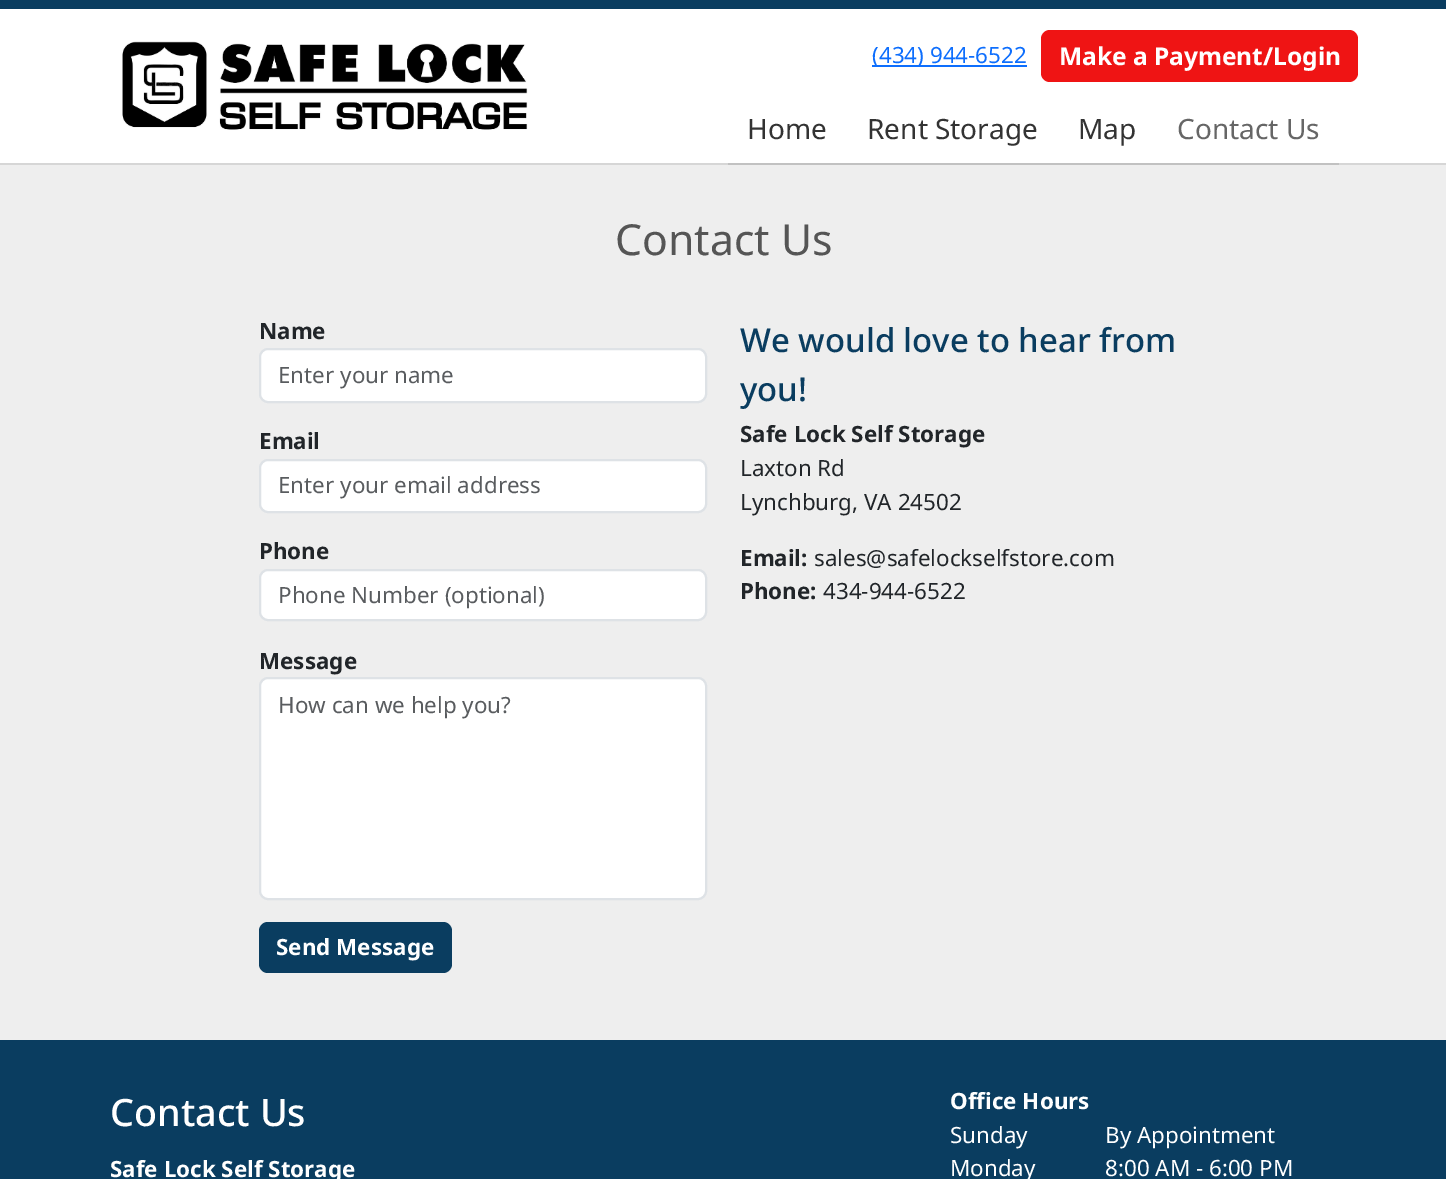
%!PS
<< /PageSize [1446 1179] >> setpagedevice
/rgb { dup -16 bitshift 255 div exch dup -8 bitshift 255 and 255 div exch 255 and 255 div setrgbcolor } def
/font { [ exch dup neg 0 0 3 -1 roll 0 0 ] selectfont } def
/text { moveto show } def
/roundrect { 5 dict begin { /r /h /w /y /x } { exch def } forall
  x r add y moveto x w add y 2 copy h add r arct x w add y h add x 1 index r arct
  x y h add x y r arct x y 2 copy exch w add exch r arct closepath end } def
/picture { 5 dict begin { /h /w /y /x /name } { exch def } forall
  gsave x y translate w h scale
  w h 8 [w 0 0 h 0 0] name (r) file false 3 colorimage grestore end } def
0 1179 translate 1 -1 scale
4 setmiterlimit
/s1 { /NotoSans-Regular 22.4 font 16#0D6EFD rgb } def
/s2 { /NotoSans-Bold 24.5 font 16#FFFFFF rgb } def
/s3 { /NotoSans-Regular 28 font 16#333333 rgb } def
/s4 { /NotoSans-Regular 28 font 16#666666 rgb } def
/s5 { /NotoSans-Regular 42.75 font 16#555555 rgb } def
/s6 { /NotoSans-Bold 22.4 font 16#212529 rgb } def
/s7 { /NotoSans-Regular 22.4 font 16#595C5F rgb } def
/s8 { /NotoSans-Bold 22.4 font 16#FFFFFF rgb } def
/s9 { /NotoSans-Medium 32.9 font 16#0A3D60 rgb } def
/s10 { /NotoSans-Regular 22.4 font 16#212529 rgb } def
/s11 { /NotoSans-Medium 37.75 font 16#FFFFFF rgb } def
/s12 { /NotoSans-Regular 22.4 font 16#FFFFFF rgb } def
16#EEEEEE rgb
0 0 1446 1179 rectfill
16#D6D6D6 rgb
0 163 1446 2 rectfill
16#FFFFFF rgb
0 9 1446 154 rectfill
16#0A3D60 rgb
0 0 1446 9 rectfill
(pic1.raw) 122 41 406 89 picture
16#0D6EFD rgb
872 65 155 2 rectfill
s1
(\(434\) 944-6522) 872 63 text
16#EF1414 rgb
1041 30 317 52 9 roundrect fill
s2
(Make a Payment/Login) 1059 65 text
16#C1C1C1 rgb
728 163 moveto 728 165 lineto 1339 165 lineto 1339 11 lineto 1339 163 lineto closepath fill
s3
(Home) 747 139 text
(Rent Storage) 867 139 text
(Map) 1078 139 text
s4
(Contact Us) 1177 139 text
s5
(Contact Us) 615 255 text
s6
(Name) 259 339 text
16#FFFFFF rgb
260 349 446 53 8 roundrect gsave fill grestore
16#DEE2E6 rgb
2 setlinewidth
stroke
s7
(Enter your name) 278 383 text
s6
(Email) 259 449 text
16#FFFFFF rgb
260 460 446 52 8 roundrect gsave fill grestore
16#DEE2E6 rgb
stroke
s7
(Enter your email address) 278 493 text
s6
(Phone) 259 559 text
16#FFFFFF rgb
260 570 446 50 8 roundrect gsave fill grestore
16#DEE2E6 rgb
stroke
s7
(Phone Number \(optional\)) 278 603 text
s6
(Message) 259 669 text
16#FFFFFF rgb
260 678 446 221 8 roundrect gsave fill grestore
16#DEE2E6 rgb
stroke
s7
(How can we help you?) 278 713 text
16#0A3D60 rgb
259 922 193 51 9 roundrect fill
s8
(Send Message) 276 955 text
s9
(We would love to hear from) 740 352 text
(you!) 740 401 text
s6
(Safe Lock Self Storage) 740 442 text
s10
(Laxton Rd) 740 476 text
(Lynchburg, VA 24502) 740 510 text
s6
(Email:) 740 566 text
s10
(sales@safelockselfstore.com) 814 566 text
s6
(Phone:) 740 599 text
s10
(434-944-6522) 823 599 text
16#0A3D60 rgb
0 1040 1446 139 rectfill
s11
(Contact Us) 110 1126 text
s8
(Safe Lock Self Storage) 110 1177 text
(Office Hours) 950 1109 text
s12
(Sunday) 950 1143 text
(By Appointment) 1105 1143 text
(Monday) 950 1176 text
(8:00 AM - 6:00 PM) 1105 1176 text
showpage
